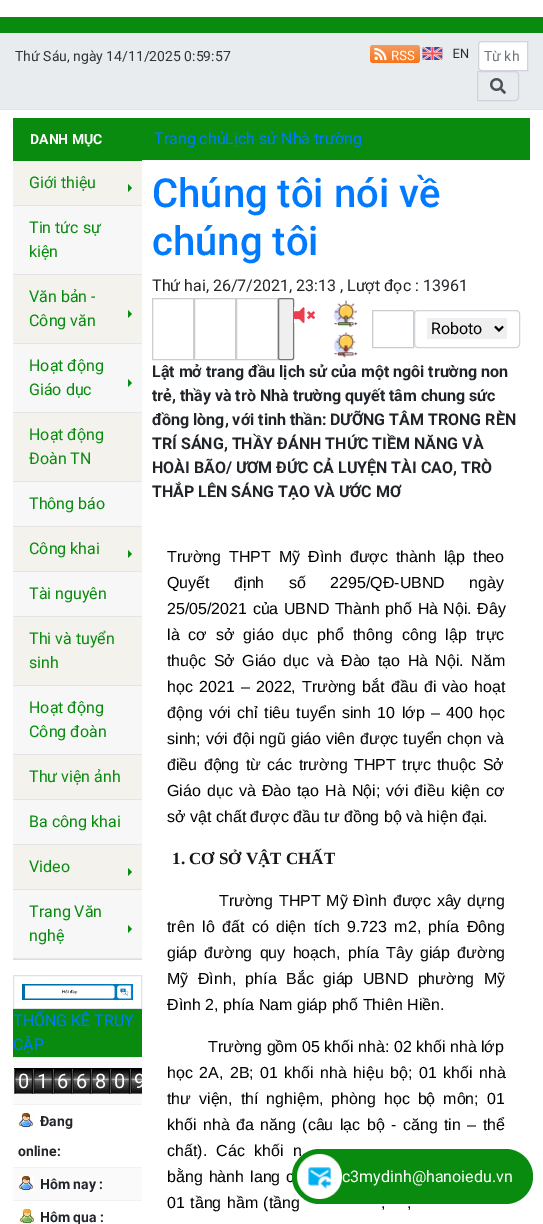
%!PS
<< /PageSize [543 1224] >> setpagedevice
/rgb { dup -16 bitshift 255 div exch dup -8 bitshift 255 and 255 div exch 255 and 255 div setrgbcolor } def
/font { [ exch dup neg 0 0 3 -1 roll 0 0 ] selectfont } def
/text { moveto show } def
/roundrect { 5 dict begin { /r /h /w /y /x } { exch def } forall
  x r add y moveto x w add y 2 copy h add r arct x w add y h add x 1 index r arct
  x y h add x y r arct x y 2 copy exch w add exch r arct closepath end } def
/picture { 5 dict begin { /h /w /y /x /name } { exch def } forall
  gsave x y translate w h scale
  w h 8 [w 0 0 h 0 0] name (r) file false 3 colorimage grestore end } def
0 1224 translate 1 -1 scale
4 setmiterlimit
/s1 { /Roboto-Regular 14 font 16#333333 rgb } def
/s2 { /Roboto-Regular 14 font 16#6C757D rgb } def
/s3 { /Roboto-Bold 14 font 16#FFFFFF rgb } def
/s4 { /Roboto-Regular 16 font 16#098B0F rgb } def
/s5 { /Roboto-Regular 16 font 16#007BFF rgb } def
/s6 { /Roboto-Regular 20 font 16#FFFFFF rgb } def
/s7 { /Roboto-Bold 14 font 16#212529 rgb } def
/s8 { /Roboto-Medium 40 font 16#007BFF rgb } def
/s9 { /Roboto-Regular 16 font 16#212529 rgb } def
/s10 { /Roboto-Regular 16 font 16#000000 rgb } def
/s11 { /Roboto-Bold 16 font 16#212529 rgb } def
/s12 { /LiberationSans-Regular 16 font 16#000000 rgb } def
/s13 { /LiberationSerif-Bold 17 font 16#161616 rgb } def
/s14 { /Roboto-Regular 16 font 16#FFFFFF rgb } def
16#FFFFFF rgb
0 0 543 1224 rectfill
16#098B0F rgb
0 17 543 16 rectfill
16#E9ECEF rgb
0 33 543 76 rectfill
16#EBE3DA rgb
0 109 543 1 rectfill
s1
(Thứ Sáu, ngày 14/11/2025 0:59:57) 15 61 text
(pic1.raw) 370 45 50 18 picture
(pic2.raw) 422 47 47 13 picture
16#FFFFFF rgb
482 41.5 moveto 527.5 41.5 lineto 527.5 70.5 lineto 482 70.5 lineto 480 70.5 478.5 69 478.5 67 curveto 478.5 45 lineto 478.5 43 480 41.5 482 41.5 curveto closepath gsave fill grestore
16#CED4DA rgb
stroke
s2
(Từ kh) 484 61 text
16#CED4DA rgb
477.5 71.5 moveto 515 71.5 lineto 517 71.5 518.5 73 518.5 75 curveto 518.5 97 lineto 518.5 99 517 100.5 515 100.5 curveto 477.5 100.5 lineto closepath stroke
(pic3.raw) 490 78 16 16 picture
16#098B0F rgb
13 118 129 43 rectfill
s3
(DANH MỤC) 30 144 text
16#F4F2ED rgb
13 161 129 44 rectfill
16#E5E5E5 rgb
13 205 129 1 rectfill
s4
(Giới thiệu) 29 188 text
128 192 moveto 128 184 lineto 132 188 lineto closepath fill
16#F7F7F7 rgb
13 206 129 68 rectfill
16#E5E5E5 rgb
13 274 129 1 rectfill
s4
(Tin tức sự) 29 233 text
(kiện) 29 257 text
16#F4F2ED rgb
13 275 129 68 rectfill
16#E5E5E5 rgb
13 343 129 1 rectfill
s4
(Văn bản -) 29 302 text
(Công văn) 29 326 text
128 318 moveto 128 310 lineto 132 314 lineto closepath fill
16#F7F7F7 rgb
13 344 129 68 rectfill
16#E5E5E5 rgb
13 412 129 1 rectfill
s4
(Hoạt động) 29 371 text
(Giáo dục) 29 395 text
128 387 moveto 128 379 lineto 132 383 lineto closepath fill
16#F4F2ED rgb
13 413 129 68 rectfill
16#E5E5E5 rgb
13 481 129 1 rectfill
s4
(Hoạt động) 29 440 text
(Đoàn TN) 29 464 text
16#F7F7F7 rgb
13 482 129 44 rectfill
16#E5E5E5 rgb
13 526 129 1 rectfill
s4
(Thông báo) 29 509 text
16#F4F2ED rgb
13 527 129 44 rectfill
16#E5E5E5 rgb
13 571 129 1 rectfill
s4
(Công khai) 29 554 text
128 558 moveto 128 550 lineto 132 554 lineto closepath fill
16#F7F7F7 rgb
13 572 129 44 rectfill
16#E5E5E5 rgb
13 616 129 1 rectfill
s4
(Tài nguyên) 29 599 text
16#F4F2ED rgb
13 617 129 68 rectfill
16#E5E5E5 rgb
13 685 129 1 rectfill
s4
(Thi và tuyển) 29 644 text
(sinh) 29 668 text
16#F7F7F7 rgb
13 686 129 68 rectfill
16#E5E5E5 rgb
13 754 129 1 rectfill
s4
(Hoạt động) 29 713 text
(Công đoàn) 29 737 text
16#F4F2ED rgb
13 755 129 44 rectfill
16#E5E5E5 rgb
13 799 129 1 rectfill
s4
(Thư viện ảnh) 29 782 text
16#F7F7F7 rgb
13 800 129 44 rectfill
16#E5E5E5 rgb
13 844 129 1 rectfill
s4
(Ba công khai) 29 827 text
16#F4F2ED rgb
13 845 129 44 rectfill
16#E5E5E5 rgb
13 889 129 1 rectfill
s4
(Video) 29 872 text
128 876 moveto 128 868 lineto 132 872 lineto closepath fill
16#DEDEDE rgb
13 959 129 1 rectfill
16#F7F7F7 rgb
13 890 129 68 rectfill
16#E5E5E5 rgb
13 958 129 1 rectfill
s4
(Trang Văn) 29 917 text
(nghệ) 29 941 text
128 933 moveto 128 925 lineto 132 929 lineto closepath fill
16#DEE2E6 rgb
13.5 975.5 128 33 rectstroke
(pic4.raw) 22 984 111 16 picture
16#098B0F rgb
13 1009 129 48 rectfill
s5
(THỐNG KÊ TRUY) 13 1026 text
(CẬP) 13 1050 text
16#FAFAFA rgb
13 1058 129 46 rectfill
16#F1F1F1 rgb
13 1057 129 1 rectfill
(pic5.raw) 14 1068 19 26 picture
(pic6.raw) 33 1068 20 26 picture
(pic5.raw) 53 1068 19 26 picture
(pic5.raw) 72 1068 19 26 picture
(pic5.raw) 91 1068 19 26 picture
(pic6.raw) 110 1068 20 26 picture
(pic7.raw) 130 1068 12 26 picture
s6
(0) 18 1088 text
(1) 37 1088 text
(6) 57 1088 text
(6) 76 1088 text
(8) 95 1088 text
(0) 114 1088 text
(9) 134 1088 text
16#F1F1F1 rgb
13 1104 129 1 rectfill
(pic8.raw) 18 1113 16 15 picture
s7
(Đang) 40 1126 text
(online:) 18 1156 text
16#FAFAFA rgb
13 1168 129 32 rectfill
16#F1F1F1 rgb
13 1167 129 1 rectfill
(pic8.raw) 18 1176 16 15 picture
s7
(Hôm nay :) 40 1189 text
16#F1F1F1 rgb
13 1200 129 1 rectfill
(pic9.raw) 18 1209 17 15 picture
s7
(Hôm qua :) 40 1222 text
16#098B0F rgb
142 118 388 42 rectfill
s5
(Trang chủLịch sử Nhà trường) 154 144 text
s8
(Chúng tôi nói về) 152 207 text
(chúng tôi) 152 255 text
s9
(Thứ hai, 26/7/2021, 23:13 , Lượt đọc : 13961) 152 291 text
16#CCCCCC rgb
152.5 298.5 41 61 rectstroke
194.5 298.5 41 61 rectstroke
236.5 298.5 41 61 rectstroke
16#EFEFEF rgb
278.5 298.5 15 61 1.5 roundrect gsave fill grestore
16#767676 rgb
stroke
(pic10.raw) 294 307 21 16 picture
(pic11.raw) 334 300 24 28 picture
(pic12.raw) 334 332 24 26 picture
16#CCCCCC rgb
372.5 310.5 41 37 rectstroke
16#CED4DA rgb
414.5 310.5 105 37 3.5 roundrect stroke
16#EFEFEF rgb
427 318 80 21 rectfill
16#000000 rgb
2 setlinewidth
495 326.5 moveto 499 330.5 lineto 503 326.5 lineto stroke
(Roboto) 431 334 text
s11
(Lật mở trang đầu lịch sử của một ngôi trường non) 152 377 text
(trẻ, thầy và trò Nhà trường quyết tâm chung sức) 152 401 text
(đồng lòng, với tinh thần: DƯỠNG TÂM TRONG RÈN) 152 425 text
(TRÍ SÁNG, THẦY ĐÁNH THỨC TIỀM NĂNG VÀ) 152 449 text
(HOÀI BÃO/ ƯƠM ĐỨC CẢ LUYỆN TÀI CAO, TRÒ) 152 473 text
(THẮP LÊN SÁNG TẠO VÀ ƯỚC MƠ) 152 497 text
/LiberationSans-Regular 16 font
16#000000 rgb
167 562 moveto 3.5 0 32 (Trường THPT Mỹ Đình được thành lập theo) widthshow
167 588 moveto 20 0 32 (Quyết định số 2295/QĐ-UBND ngày) widthshow
167 614 moveto 1 0 32 (25/05/2021 của UBND Thành phố Hà Nội. Đây) widthshow
167 640 moveto 4.5 0 32 (là cơ sở giáo dục phổ thông công lập trực) widthshow
167 666 moveto 3 0 32 (thuộc Sở Giáo dục và Đào tạo Hà Nội. Năm) widthshow
167 692 moveto 1.75 0 32 (học 2021 – 2022, Trường bắt đầu đi vào hoạt) widthshow
167 718 moveto 1.9 0 32 (động với chỉ tiêu tuyển sinh 10 lớp – 400 học) widthshow
167 744 moveto 0.5 0 32 (sinh; với đội ngũ giáo viên được tuyển chọn và) widthshow
167 770 moveto 2 0 32 (điều động từ các trường THPT trực thuộc Sở) widthshow
167 796 moveto 1.6 0 32 (Giáo dục và Đào tạo Hà Nội; với điều kiện cơ) widthshow
(sở vật chất được đầu tư đồng bộ và hiện đại.) 167 822 text
s13
(1. CƠ SỞ VẬT CHẤT) 172 864 text
/LiberationSans-Regular 16 font
16#000000 rgb
219 906 moveto 1.25 0 32 (Trường THPT Mỹ Đình được xây dựng) widthshow
167 932 moveto 3 0 32 (trên lô đất có diện tích 9.723 m) widthshow
(2,) 408 932 text
428 932 moveto 3 0 32 (phía Đông) widthshow
167 958 moveto 2.75 0 32 (giáp đường quy hoạch, phía Tây giáp đường) widthshow
167 984 moveto 5 0 32 (Mỹ Đình, phía Bắc giáp UBND phường Mỹ) widthshow
(Đình 2, phía Nam giáp phố Thiên Hiền.) 167 1010 text
(Trường gồm 05 khối nhà: 02 khối nhà lớp) 208 1052 text
167 1078 moveto 2 0 32 (học 2A, 2B; 01 khối nhà hiệu bộ; 01 khối nhà) widthshow
167 1104 moveto 3.5 0 32 (thư viện, thí nghiệm, phòng học bộ môn; 01) widthshow
167 1130 moveto 2 0 32 (khối nhà đa năng \(câu lạc bộ - căng tin – thể) widthshow
167 1156 moveto 5 0 32 (chất\). Các khối n) widthshow
167 1182 moveto 1.5 0 32 (bằng hành lang c) widthshow
167 1208 moveto 1 0 32 (01 tầng hầm \(tầng) widthshow
381 1208 moveto 1 0 32 (,) widthshow
407 1208 moveto 1 0 32 (,) widthshow
16#098B0F rgb
292 1149 241 55 27.5 roundrect fill
(pic13.raw) 296 1154 46 45 picture
s14
(c3mydinh@hanoiedu.vn) 342 1182 text
showpage
